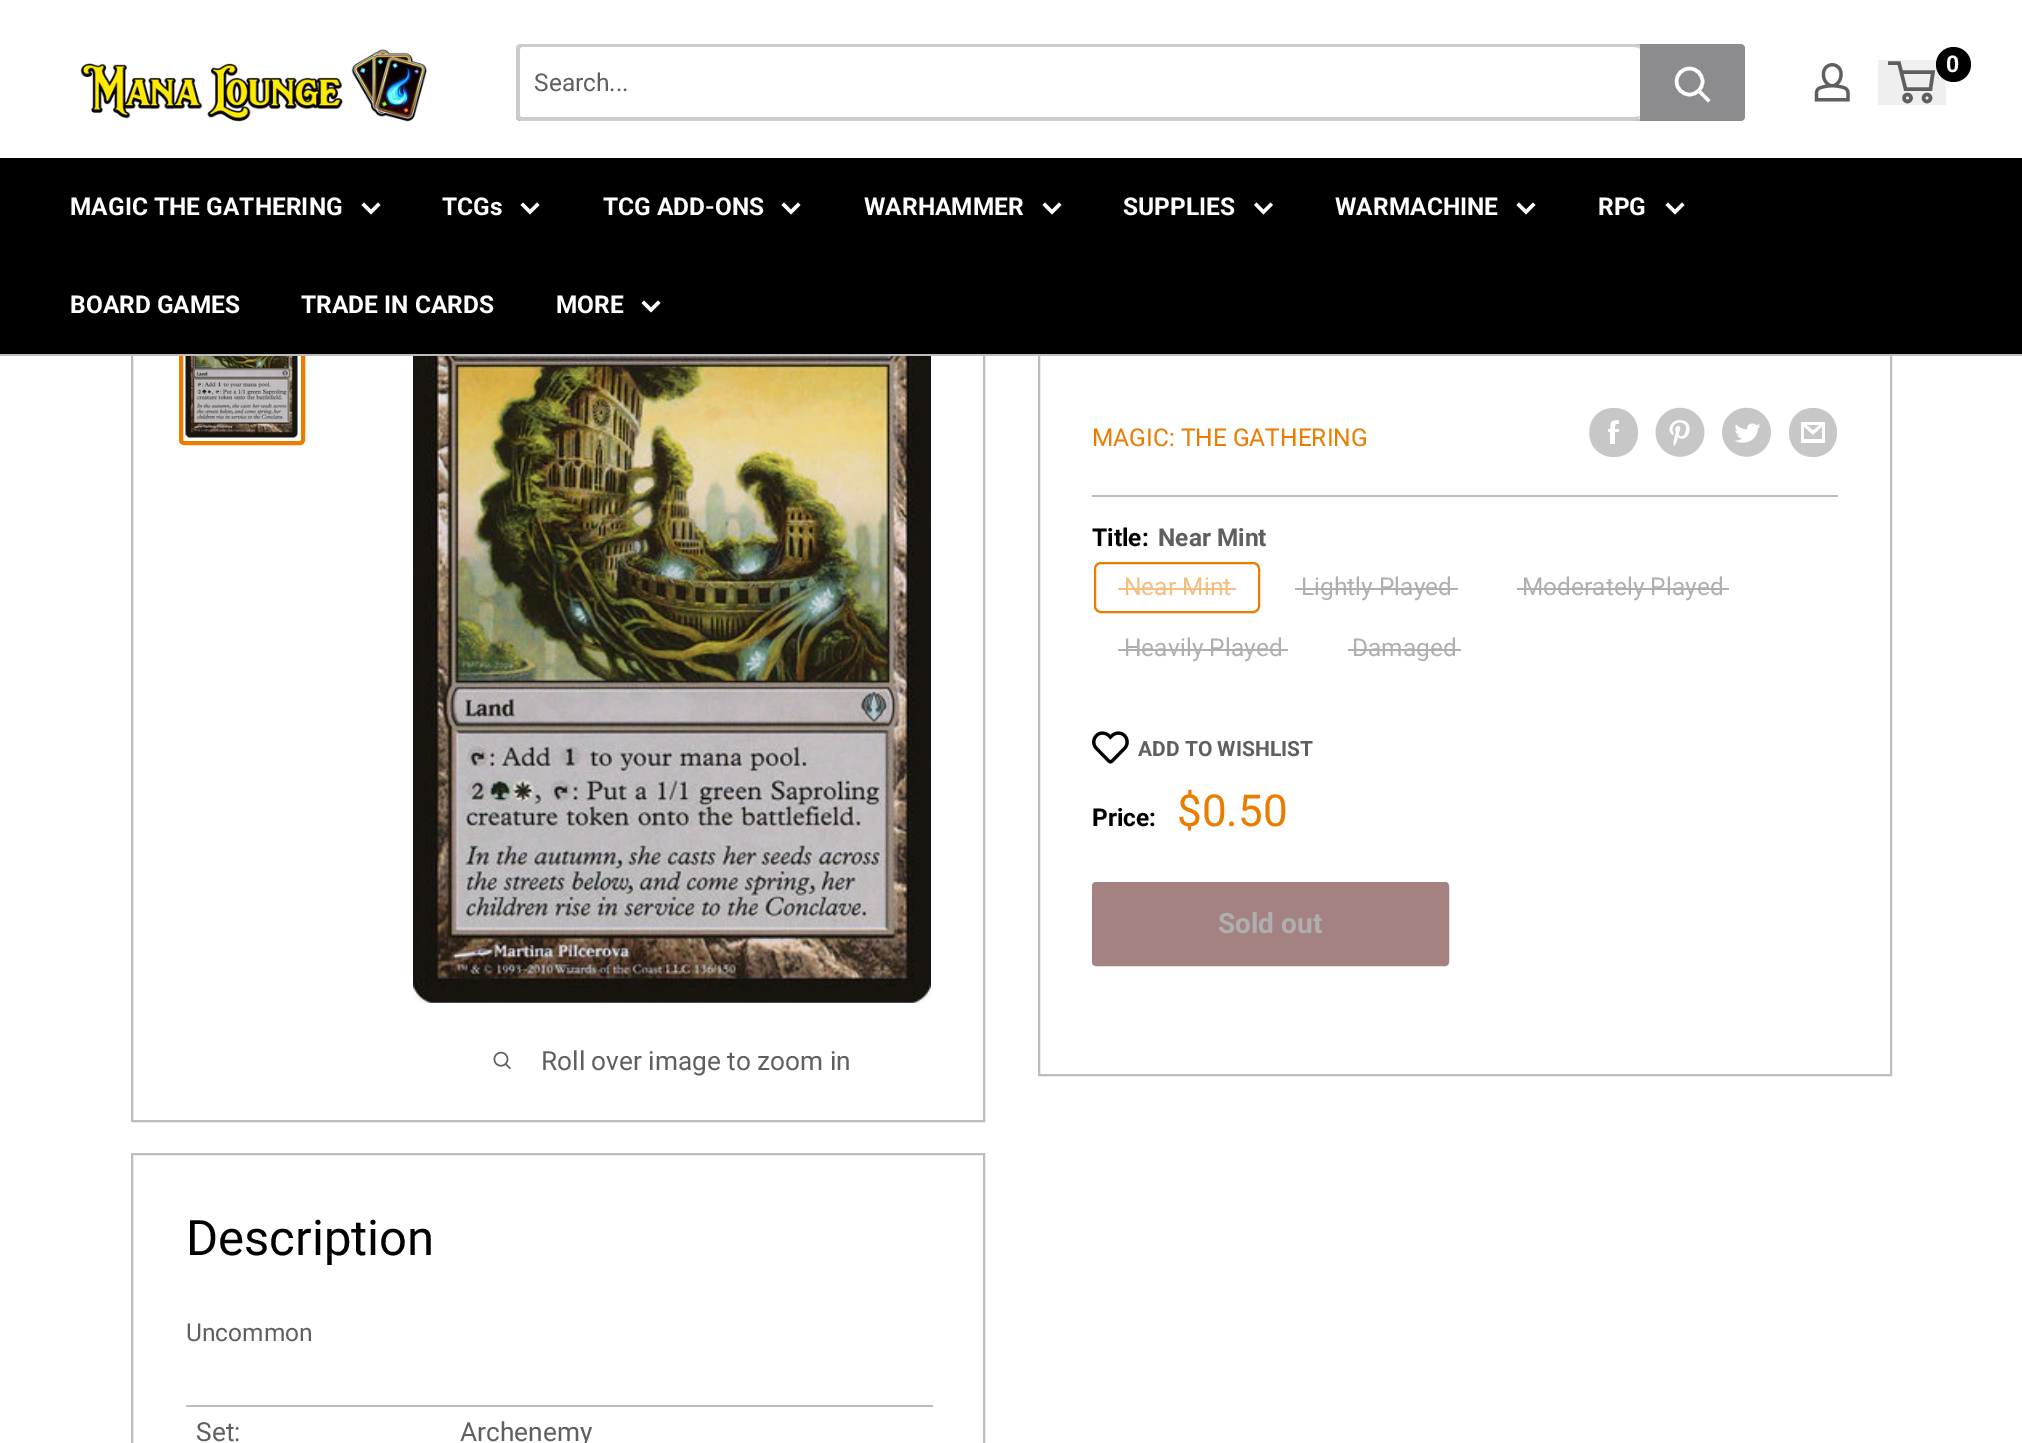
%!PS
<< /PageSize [2022 1443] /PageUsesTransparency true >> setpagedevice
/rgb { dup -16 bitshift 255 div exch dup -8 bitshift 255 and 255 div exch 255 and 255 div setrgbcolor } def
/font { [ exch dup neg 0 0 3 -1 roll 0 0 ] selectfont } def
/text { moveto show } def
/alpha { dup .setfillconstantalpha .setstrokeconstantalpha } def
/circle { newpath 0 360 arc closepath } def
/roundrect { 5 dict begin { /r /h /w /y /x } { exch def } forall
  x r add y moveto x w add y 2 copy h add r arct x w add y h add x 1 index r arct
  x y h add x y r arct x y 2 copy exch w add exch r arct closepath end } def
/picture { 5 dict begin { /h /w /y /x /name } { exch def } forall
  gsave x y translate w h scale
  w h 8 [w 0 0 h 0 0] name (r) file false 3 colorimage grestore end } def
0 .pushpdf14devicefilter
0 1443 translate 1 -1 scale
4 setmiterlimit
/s1 { /Roboto-Bold 23 font 16#FFFFFF rgb } def
/s2 { /Roboto-Regular 24.5 font 16#5F5F5F rgb } def
/s3 { /Roboto-Bold 24.5 font 16#FFFFFF rgb } def
/s4 { /Roboto-Regular 24.5 font 16#EB7C00 rgb } def
/s5 { /Roboto-Bold 24.5 font 16#000000 rgb } def
/s6 { /Roboto-Bold 24.5 font 16#5F5F5F rgb } def
/s7 { /Roboto-Regular 24.5 font 16#F5BE80 rgb } def
/s8 { /Roboto-Regular 24.5 font 16#AFAFAF rgb } def
/s9 { /Roboto-Bold 21 font 16#5F5F5F rgb } def
/s10 { /Roboto-Regular 44 font 16#EB7C00 rgb } def
/s11 { /Roboto-Bold 28 font 16#AFAFAF rgb } def
/s12 { /Roboto-Regular 26.25 font 16#5F5F5F rgb } def
/s13 { /Roboto-Regular 49 font 16#000000 rgb } def
16#FFFFFF rgb
0 0 2022 1443 rectfill
(pic1.raw) 80 49 347 73 picture
(pic2.raw) 1814 63 36 39 picture
16#EFEFEF rgb
1878 60 68 45 rectfill
16#5F5F5F rgb
3.5 setlinewidth
1907.5 98 3.5 circle stroke
1927 98 3.5 circle stroke
1901 72 moveto 1933 72 lineto 1930.5 89 lineto 1905.5 89 lineto 1899 63 lineto 1888 63 lineto stroke
16#000000 rgb
1953.5 64.5 17.5 circle fill
s1
(0) 1946 72 text
16#BCC2CE rgb
516 118 moveto 517 120 519 121 521 121 curveto 1740 121 lineto 1743 121 1745 119 1745 116 curveto 1745 49 lineto 1745 47 1744 46 1743 45 curveto 1743 47 lineto 1743 114 lineto 1743 117 1741 119 1738 119 curveto 520 119 lineto closepath fill
0.3 alpha
16#1E345D rgb
523 46 moveto 1741 46 lineto 1743 46 1744 47 1745 48 curveto 1744 45 1742 44 1740 44 curveto 521 44 lineto 518 44 516 46 516 49 curveto 516 116 lineto 516 118 517 120 520 121 curveto 519 120 518 119 518 117 curveto 518 51 lineto 518 48 520 46 523 46 curveto closepath fill
1 alpha
16#CCCCCC rgb
522 44 moveto 1634 44 lineto 1637 44 1640 46 1640 49 curveto 1640 116 lineto 1640 118 1637 121 1634 121 curveto 522 121 lineto 519 121 516 118 516 116 curveto 516 49 lineto 516 46 519 44 522 44 curveto closepath 522 47 moveto 1634 47 lineto 1637 47 1640 48 1640 49 curveto 1640 116 lineto 1640 116 1637 117 1634 117 curveto 522 117 lineto 521 117 520 116 520 116 curveto 520 49 lineto 520 48 521 47 522 47 curveto closepath eofill
s2
(Search...) 534 91 text
16#8C8B8D rgb
1640 44 moveto 1740 44 lineto 1743 44 1745 46 1745 49 curveto 1745 116 lineto 1745 119 1743 121 1740 121 curveto 1640 121 lineto closepath fill
16#FFFFFF rgb
2 setlinecap
1708 100 moveto 1699 91 lineto stroke
0 setlinecap
1689.5 81.5 13 circle stroke
16#BDBDBD rgb
2 setlinewidth
1039 229 852 846 rectstroke
132 229 852 892 rectstroke
16#EB7C00 rgb
4 setlinewidth
181 277 122 166 3 roundrect stroke
16#000000 rgb
0 158 2022 196 rectfill
16#BDBDBD rgb
0 354 2022 2 rectfill
s3
(MAGIC THE GATHERING) 70 215 text
3.5 setlinewidth
2 setlinecap
378 205 moveto 371 212 lineto 364 205 lineto stroke
(TCGs) 442 215 text
537 205 moveto 530 212 lineto 523 205 lineto stroke
(TCG ADD-ONS) 603 215 text
798 205 moveto 791 212 lineto 784 205 lineto stroke
(WARHAMMER) 864 215 text
1059 205 moveto 1052 212 lineto 1045 205 lineto stroke
(SUPPLIES) 1123 215 text
1270.5 205 moveto 1263.5 212 lineto 1256.5 205 lineto stroke
(WARMACHINE) 1335 215 text
1533 205 moveto 1526 212 lineto 1519 205 lineto stroke
(RPG) 1598 215 text
1682 205 moveto 1675 212 lineto 1668 205 lineto stroke
(BOARD GAMES) 70 313 text
(TRADE IN CARDS) 301 313 text
(MORE) 556 313 text
658 303 moveto 651 310 lineto 644 303 lineto stroke
s4
(MAGIC: THE GATHERING) 1092 446 text
16#C7C7C7 rgb
1614 457 moveto 1581 457 1581 408 1614 408 curveto 1646 408 1646 457 1614 457 curveto closepath 1619 429 moveto 1615 429 lineto 1615 425 1615 424 1619 424 curveto 1619 420 lineto 1611 420 1610 421 1610 429 curveto 1608 429 lineto 1608 432 lineto 1610 432 lineto 1610 444 lineto 1615 444 lineto 1615 432 lineto 1619 432 lineto closepath eofill
(pic3.raw) 1655 407 50 50 picture
(pic4.raw) 1722 407 49 50 picture
1813 457 moveto 1781 457 1781 408 1813 408 curveto 1845 408 1845 457 1813 457 curveto closepath 1807 425 moveto 1819 425 lineto 1813 430 lineto closepath 1822 427 moveto 1822 439 lineto 1804 439 lineto 1804 427 lineto 1813 435 lineto closepath 1825 422 moveto 1801 422 lineto 1801 443 lineto 1825 443 lineto closepath fill
16#BDBDBD rgb
1092 495 746 2 rectfill
s5
(Title:) 1092 546 text
s6
(Near Mint) 1158 546 text
16#EB7C00 rgb
2 setlinewidth
0 setlinecap
1095 563 164 49 6 roundrect stroke
s7
(Near Mint) 1124 595 text
1118 588 118 2 rectfill
s8
(Lightly Played) 1301 595 text
1295 588 163 2 rectfill
(Moderately Played) 1522 595 text
1517 588 212 2 rectfill
(Heavily Played) 1124 656 text
1118 649 170 2 rectfill
(Damaged) 1352 656 text
1348 649 113 2 rectfill
(pic5.raw) 1092 731 37 33 picture
s9
(ADD TO WISHLIST) 1138 756 text
s5
(Price:) 1092 826 text
s10
($0.50) 1177 826 text
16#A58282 rgb
1093 883 355 82 3 roundrect gsave fill grestore
stroke
s11
(Sold out) 1218 933 text
(pic6.raw) 185 356 113 82 picture
(pic7.raw) 413 356 518 647 picture
(pic8.raw) 493 1051 18 19 picture
s12
(Roll over image to zoom in) 541 1070 text
16#BDBDBD rgb
132 1154 852 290 rectstroke
s13
(Description) 186 1255 text
s2
(Uncommon) 186 1341 text
16#BDBDBD rgb
186 1405 747 2 rectfill
s12
(Set:) 196 1441 text
(Archenemy) 460 1441 text
.poppdf14devicefilter showpage
